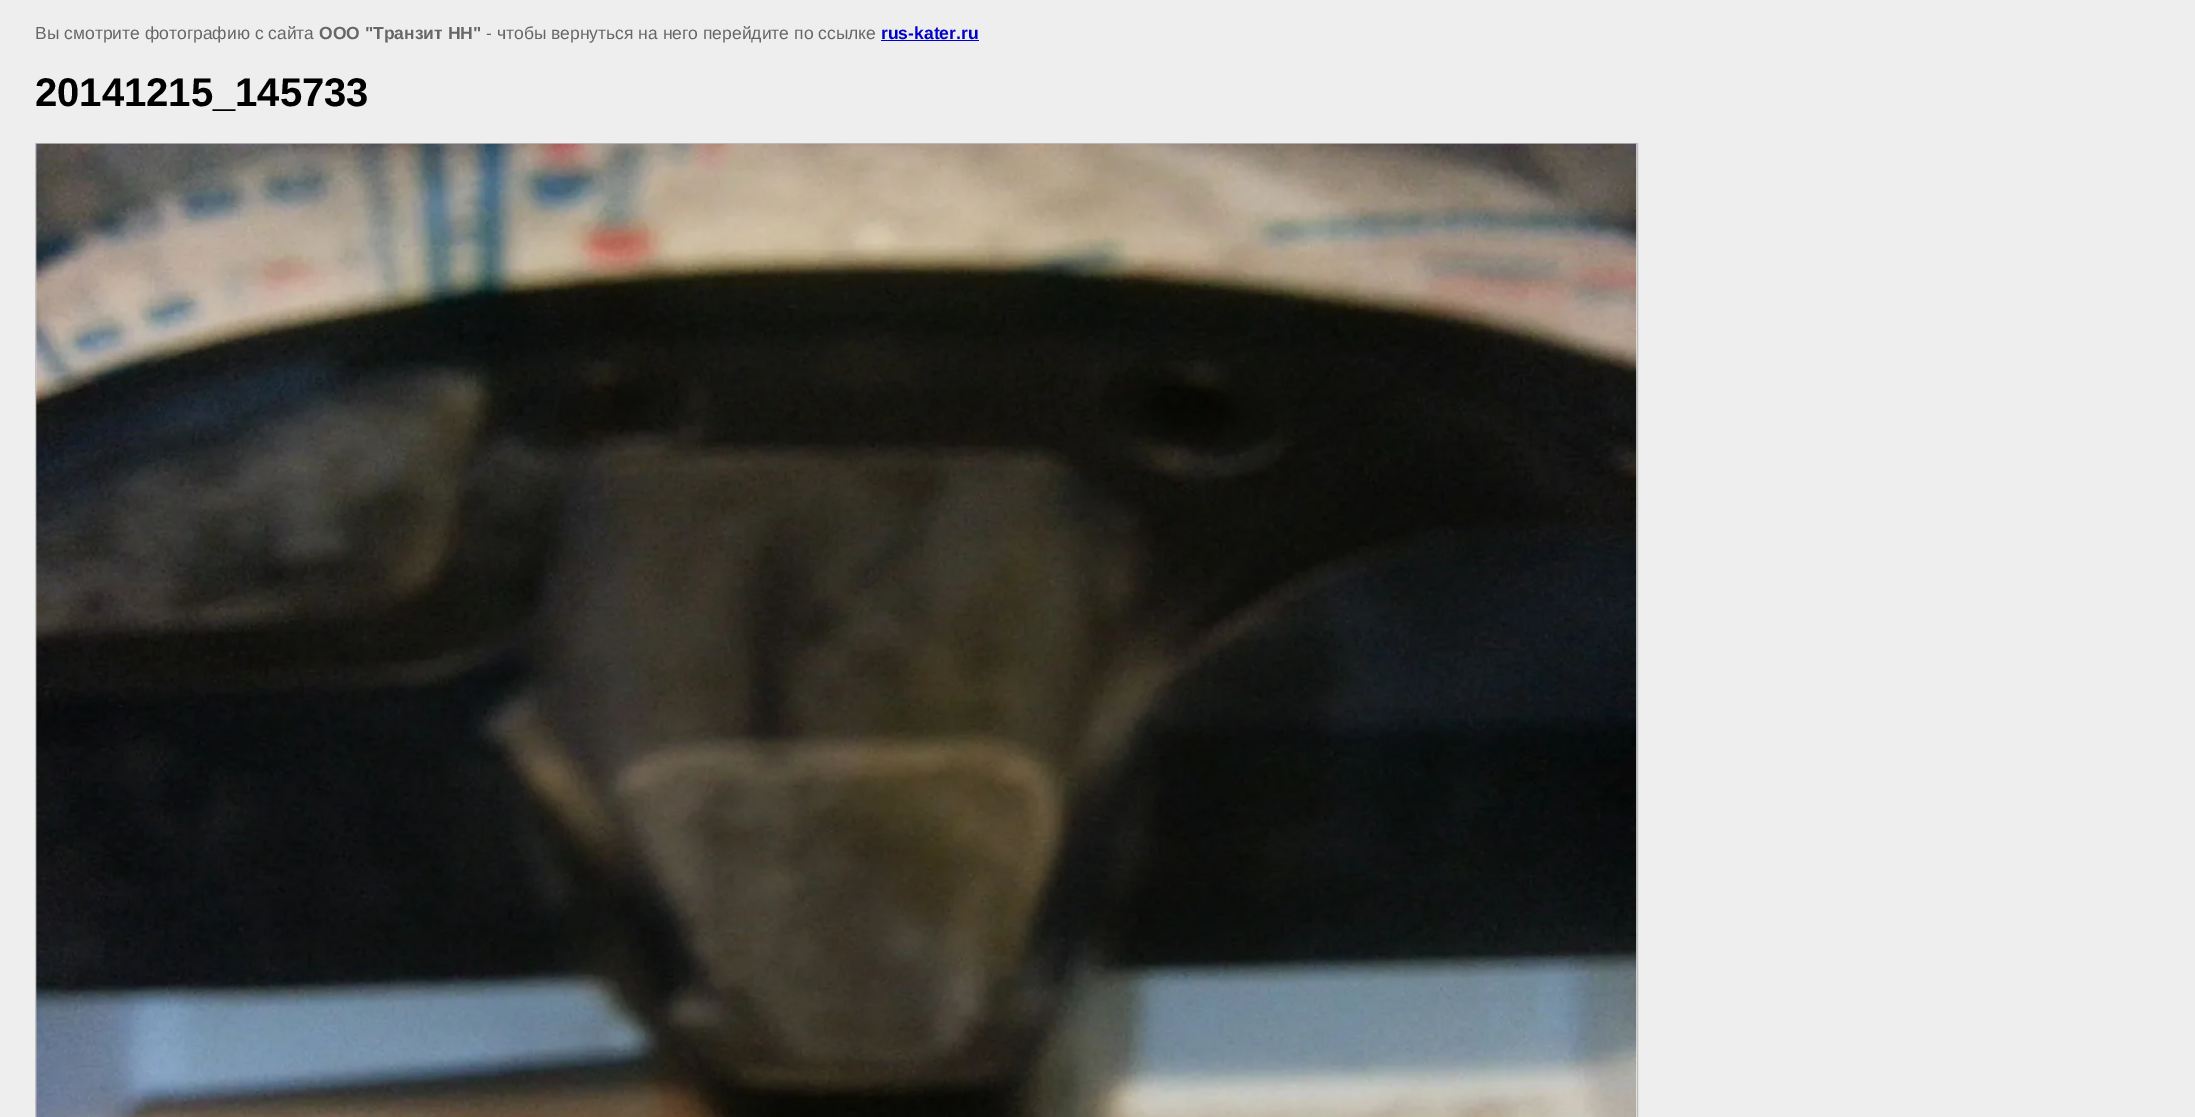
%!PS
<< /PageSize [2195 1117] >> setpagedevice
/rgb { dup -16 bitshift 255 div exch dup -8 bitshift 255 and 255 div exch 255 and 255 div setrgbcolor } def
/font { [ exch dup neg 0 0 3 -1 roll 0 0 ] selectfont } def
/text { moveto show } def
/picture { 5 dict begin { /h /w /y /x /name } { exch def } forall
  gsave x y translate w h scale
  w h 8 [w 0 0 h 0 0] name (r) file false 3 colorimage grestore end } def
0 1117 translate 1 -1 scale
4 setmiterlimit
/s1 { /LiberationSans-Regular 17.5 font 16#666666 rgb } def
/s2 { /LiberationSans-Bold 17.5 font 16#666666 rgb } def
/s3 { /LiberationSans-Bold 17.5 font 16#0000CC rgb } def
/s4 { /LiberationSans-Bold 40 font 16#000000 rgb } def
16#EEEEEE rgb
0 0 2195 1117 rectfill
s1
(Вы смотрите фотографию с сайта) 35 39 text
s2
(ООО "Транзит НН") 319 39 text
s1
(- чтобы вернуться на него перейдите по ссылке) 486 39 text
s3
(rus-kater.ru) 881 39 text
881 40 98 1 rectfill
s4
(20141215_145733) 35 106 text
16#C0C0C0 rgb
35.5 143.5 1602 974 rectstroke
(pic1.raw) 36 143 1601 974 picture
showpage
